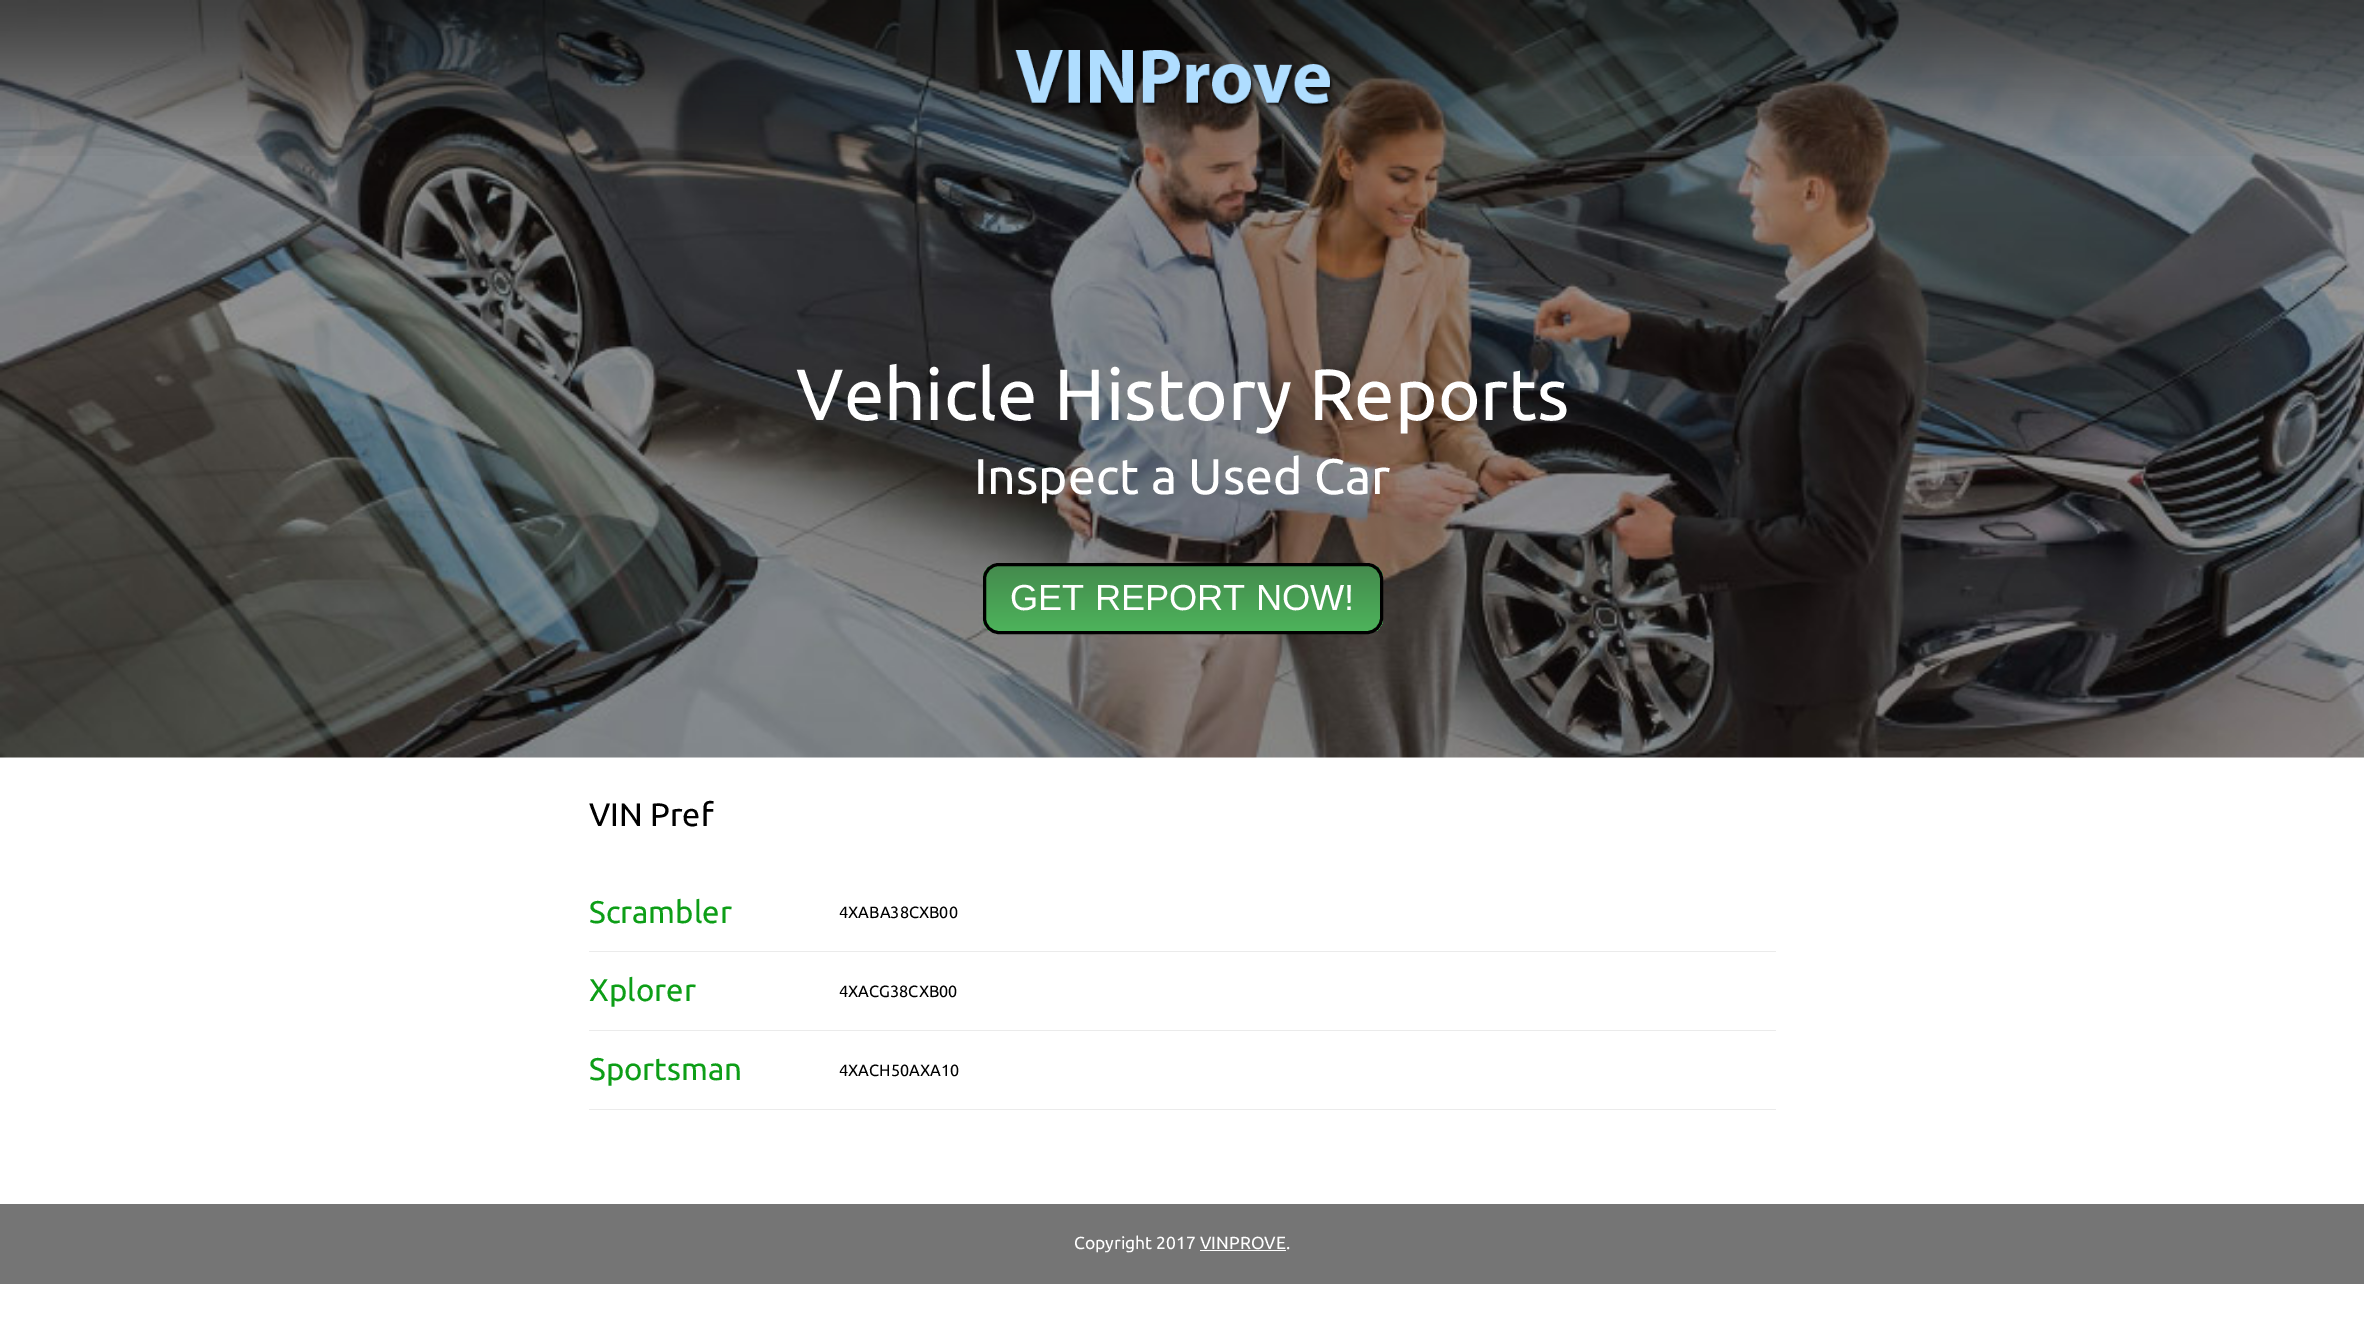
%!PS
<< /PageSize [2364 1319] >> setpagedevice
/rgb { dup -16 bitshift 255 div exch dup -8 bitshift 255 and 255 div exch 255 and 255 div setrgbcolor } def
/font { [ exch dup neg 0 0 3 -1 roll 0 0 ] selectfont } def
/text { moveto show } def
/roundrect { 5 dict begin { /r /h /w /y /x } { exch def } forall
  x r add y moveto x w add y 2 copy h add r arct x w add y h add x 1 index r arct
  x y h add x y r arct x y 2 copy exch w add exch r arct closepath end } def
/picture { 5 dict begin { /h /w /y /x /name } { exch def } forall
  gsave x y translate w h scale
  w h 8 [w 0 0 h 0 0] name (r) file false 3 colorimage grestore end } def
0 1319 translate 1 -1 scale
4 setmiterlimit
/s1 { /Ubuntu-Regular 72.5 font 16#FFFFFF rgb } def
/s2 { /Ubuntu-Regular 50 font 16#FFFFFF rgb } def
/s3 { /LiberationSans-Regular 36.25 font 16#FFFFFF rgb } def
/s4 { /Ubuntu-Regular 32.5 font 16#000000 rgb } def
/s5 { /Ubuntu-Regular 31.25 font 16#0D9E17 rgb } def
/s6 { /Ubuntu-Regular 16.25 font 16#000000 rgb } def
/s7 { /Ubuntu-Regular 17.5 font 16#FFFFFF rgb } def
16#FFFFFF rgb
0 0 2364 1319 rectfill
(pic1.raw) 0 0 2364 758 picture
(pic2.raw) 0 0 2364 156 picture
(pic3.raw) 1015 50 319 58 picture
s1
(Vehicle History Reports) 796 420 text
s2
(Inspect a Used Car) 974 494 text
gsave
983 563 400 71 16 roundrect clip newpath
gsave 983 565 moveto 1383 565 lineto 1383 631 lineto 983 631 lineto closepath clip newpath
<< /ShadingType 2 /ColorSpace /DeviceRGB /Coords [1183 565 1183 631] /Extend [true true] /Function << /FunctionType 2 /Domain [0 1] /C0 [0.267 0.541 0.302] /C1 [0.302 0.702 0.357] /N 1 >> >> shfill grestore
grestore
16#000000 rgb
3 setlinewidth
984.5 564.5 397 68 14.5 roundrect stroke
s3
(GET REPORT NOW!) 1010 610 text
s4
(VIN Pref) 589 826 text
16#EBEBEB rgb
589 951 1187 1 rectfill
s5
(Scrambler) 589 923 text
s6
(4XABA38CXB00) 839 918 text
16#EBEBEB rgb
589 1030 1187 1 rectfill
s5
(Xplorer) 589 1001 text
s6
(4XACG38CXB00) 839 997 text
16#EBEBEB rgb
589 1109 1187 1 rectfill
s5
(Sportsman) 589 1080 text
s6
(4XACH50AXA10) 839 1076 text
16#757575 rgb
0 1204 2364 80 rectfill
s7
(Copyright 2017 VINPROVE.) 1074 1249 text
1200 1250 86 1 rectfill
showpage
